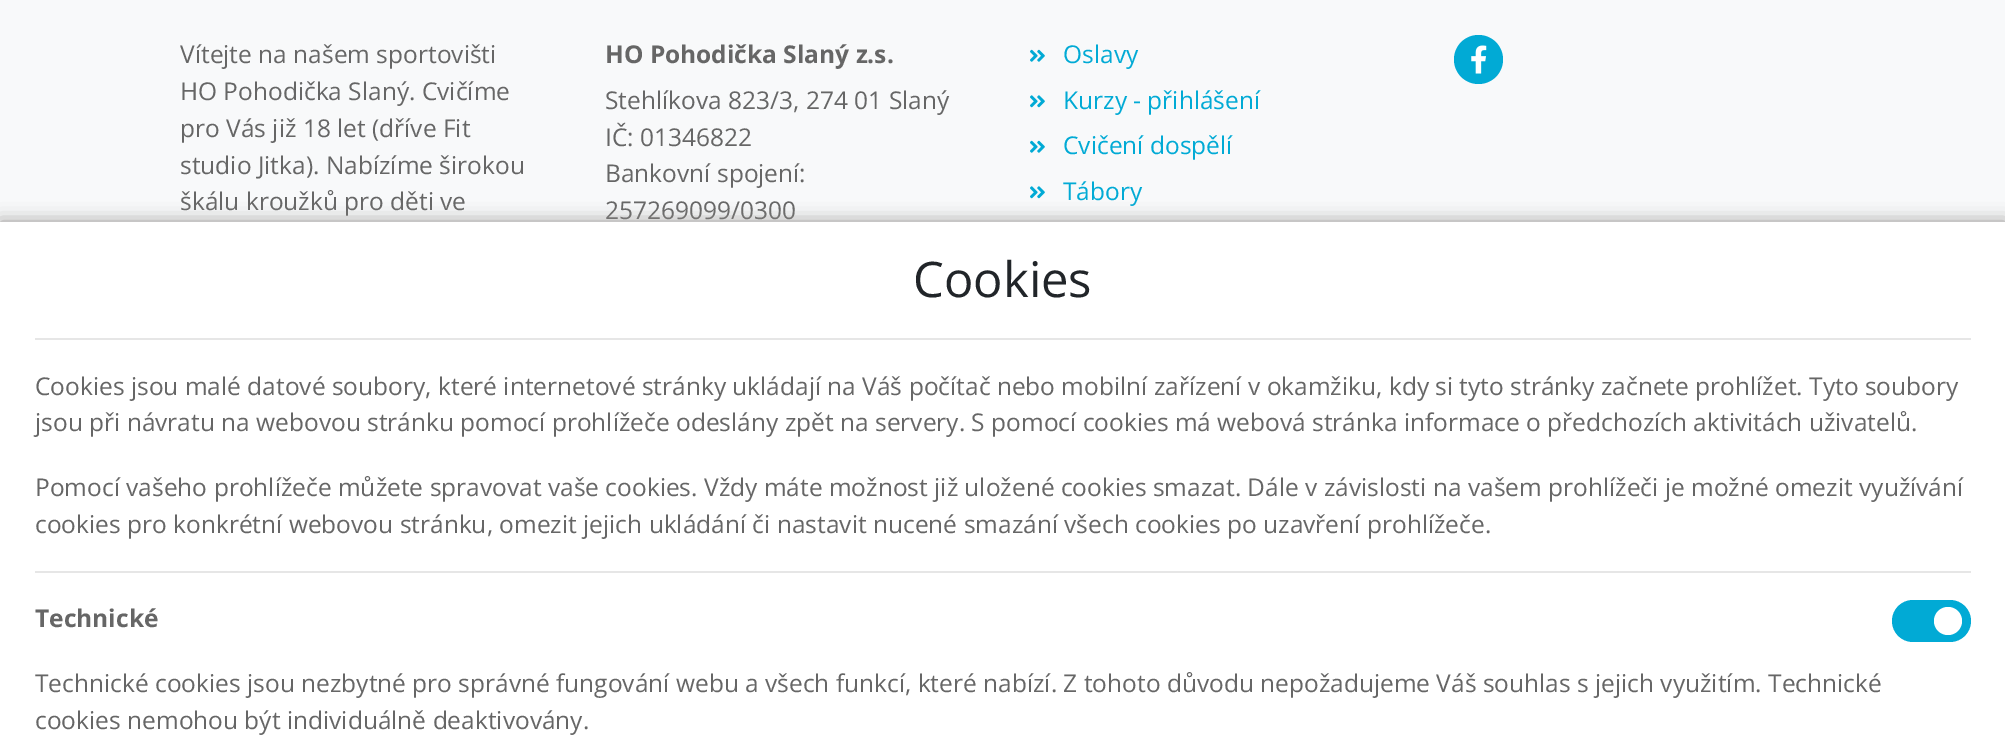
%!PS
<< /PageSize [2005 739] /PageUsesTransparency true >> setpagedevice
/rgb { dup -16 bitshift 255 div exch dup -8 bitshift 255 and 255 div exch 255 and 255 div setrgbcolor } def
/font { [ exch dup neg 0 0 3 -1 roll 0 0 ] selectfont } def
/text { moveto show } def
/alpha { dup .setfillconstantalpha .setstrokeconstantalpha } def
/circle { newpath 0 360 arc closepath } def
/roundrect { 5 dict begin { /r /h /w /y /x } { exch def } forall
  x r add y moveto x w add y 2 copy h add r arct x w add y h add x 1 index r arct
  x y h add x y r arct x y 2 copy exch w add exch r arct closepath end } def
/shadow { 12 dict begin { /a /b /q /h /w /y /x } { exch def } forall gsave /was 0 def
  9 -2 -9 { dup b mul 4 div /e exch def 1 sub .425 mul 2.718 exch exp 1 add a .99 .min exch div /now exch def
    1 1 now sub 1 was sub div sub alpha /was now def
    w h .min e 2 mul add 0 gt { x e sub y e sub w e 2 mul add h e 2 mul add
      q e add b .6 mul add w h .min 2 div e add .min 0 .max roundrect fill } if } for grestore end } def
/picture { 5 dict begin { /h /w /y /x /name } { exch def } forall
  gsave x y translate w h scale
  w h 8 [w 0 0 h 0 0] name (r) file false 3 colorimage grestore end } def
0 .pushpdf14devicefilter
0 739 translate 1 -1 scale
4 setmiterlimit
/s1 { /OpenSans-Regular 24.5 font 16#666666 rgb } def
/s2 { /OpenSans-Bold 24.5 font 16#666666 rgb } def
/s3 { /OpenSans-Regular 24.5 font 16#01AAD5 rgb } def
/s4 { /OpenSans-Regular 49 font 16#212529 rgb } def
16#F8F9FA rgb
0 0 2005 739 rectfill
s1
(Vítejte na našem sportovišti) 180 63 text
(HO Pohodička Slaný. Cvičíme) 180 100 text
(pro Vás již 18 let \(dříve Fit) 180 137 text
(studio Jitka\). Nabízíme širokou) 180 174 text
(škálu kroužků pro děti ve) 180 210 text
s2
(HO Pohodička Slaný z.s.) 605 63 text
s1
(Stehlíkova 823/3, 274 01 Slaný) 605 109 text
(IČ: 01346822) 605 146 text
(Bankovní spojení:) 605 182 text
(257269099/0300) 605 219 text
(pic1.raw) 1030 49 15 13 picture
s3
(Oslavy) 1063 63 text
(pic2.raw) 1030 95 15 13 picture
(Kurzy - přihlášení) 1063 109 text
(pic1.raw) 1030 140 15 13 picture
(Cvičení dospělí) 1063 154 text
(pic2.raw) 1030 186 15 13 picture
(Tábory) 1063 200 text
1478.5 59.5 24.5 circle fill
(pic3.raw) 1471 45 16 29 picture
16#95928F rgb
0 222 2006 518 0 9 1 shadow
16#FFFFFF rgb
0 222 2005 517 rectfill
s4
(Cookies) 913 297 text
16#E6E6E6 rgb
35 338 1936 2 rectfill
s1
(Cookies jsou malé datové soubory, které internetové stránky ukládají na Váš počítač nebo mobilní zařízení v okamžiku, kdy si tyto stránky začnete prohlížet. Tyto soubory) 35 395 text
(jsou při návratu na webovou stránku pomocí prohlížeče odeslány zpět na servery. S pomocí cookies má webová stránka informace o předchozích aktivitách uživatelů.) 35 431 text
(Pomocí vašeho prohlížeče můžete spravovat vaše cookies. Vždy máte možnost již uložené cookies smazat. Dále v závislosti na vašem prohlížeči je možné omezit využívání) 35 496 text
(cookies pro konkrétní webovou stránku, omezit jejich ukládání či nastavit nucené smazání všech cookies po uzavření prohlížeče.) 35 533 text
16#E6E6E6 rgb
35 571 1936 2 rectfill
s2
(Technické) 35 627 text
16#01AAD5 rgb
1892 600 79 42 21 roundrect fill
16#FFFFFF rgb
1948 621 14 circle fill
s1
(Technické cookies jsou nezbytné pro správné fungování webu a všech funkcí, které nabízí. Z tohoto důvodu nepožadujeme Váš souhlas s jejich využitím. Technické) 35 692 text
(cookies nemohou být individuálně deaktivovány.) 35 729 text
.poppdf14devicefilter showpage
